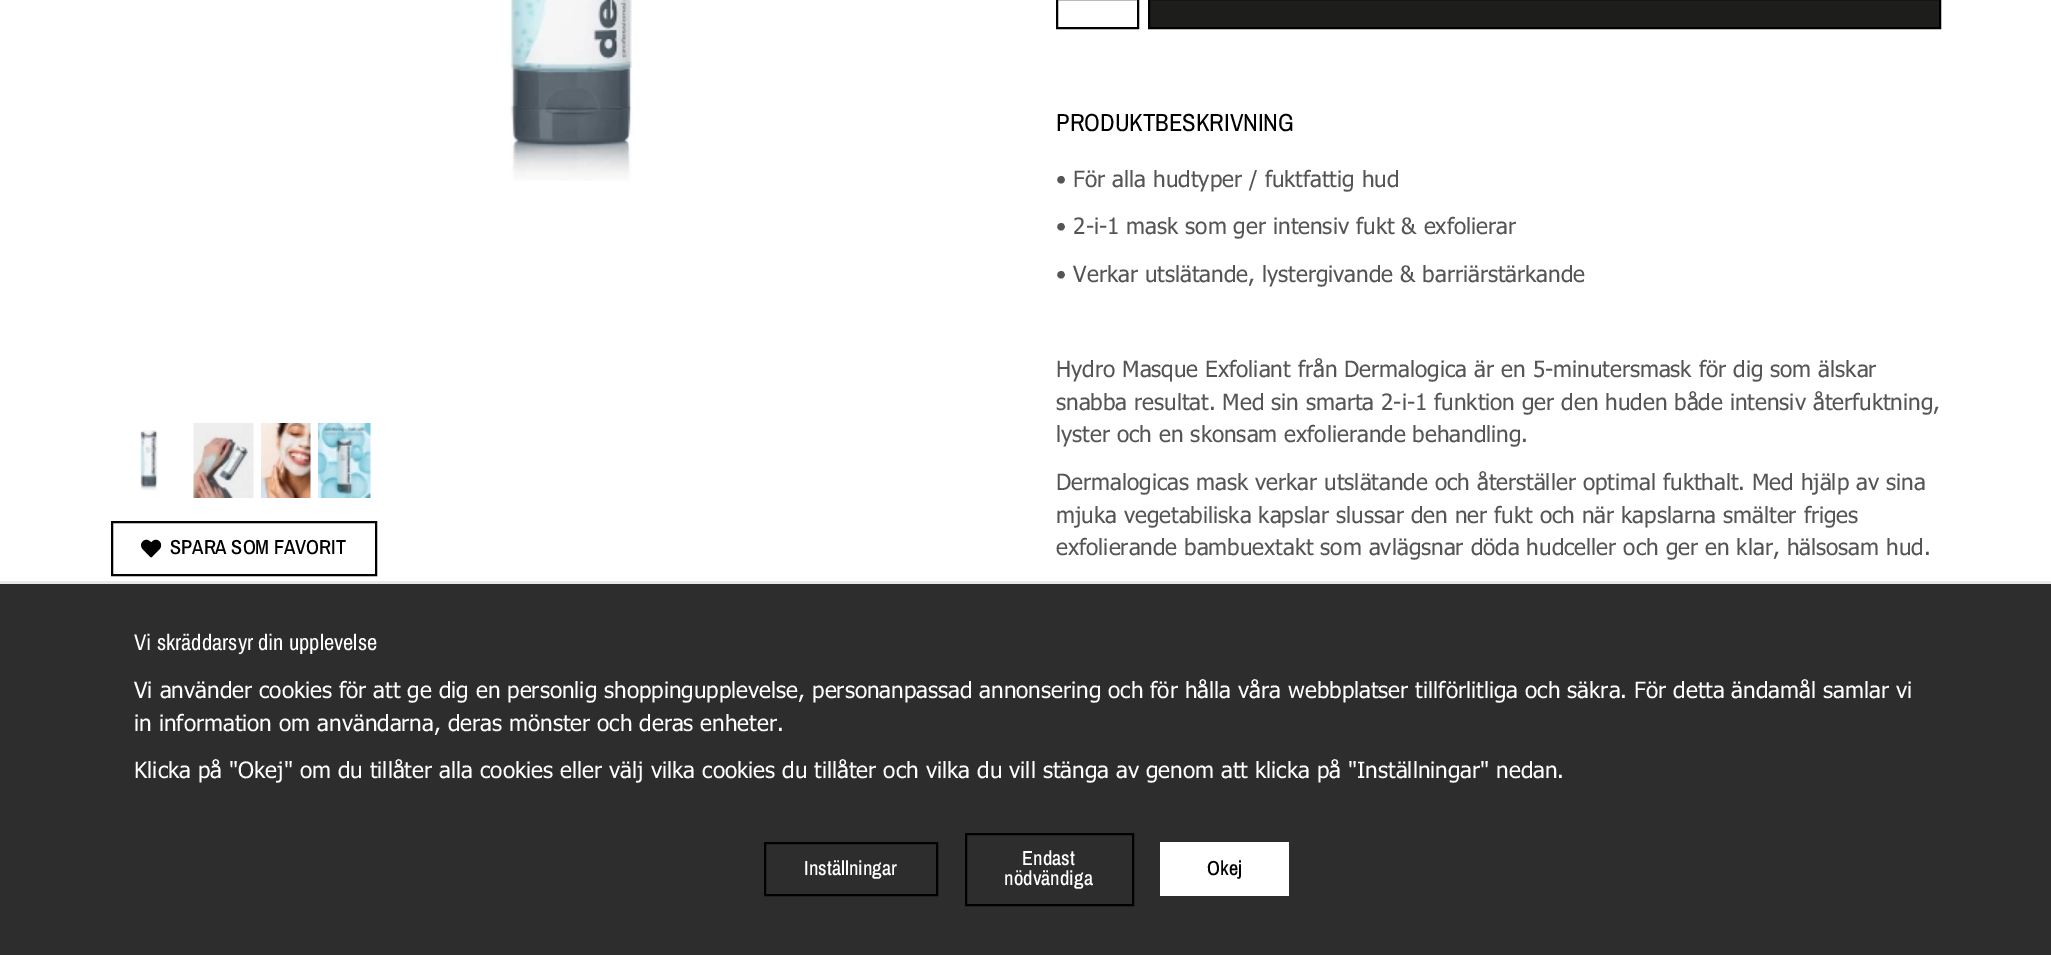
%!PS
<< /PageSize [2051 955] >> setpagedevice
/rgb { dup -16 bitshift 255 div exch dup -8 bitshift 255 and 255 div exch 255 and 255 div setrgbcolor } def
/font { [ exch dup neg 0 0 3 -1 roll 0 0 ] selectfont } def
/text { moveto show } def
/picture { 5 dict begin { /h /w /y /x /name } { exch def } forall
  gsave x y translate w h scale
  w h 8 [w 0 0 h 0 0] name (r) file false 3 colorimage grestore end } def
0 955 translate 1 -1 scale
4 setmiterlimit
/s1 { /ArchivoNarrow-Regular 24.75 font 16#000000 rgb } def
/s2 { /Tahoma-Regular 22.5 font 16#555555 rgb } def
/s3 { /ArchivoNarrow-Medium 20.25 font 16#000000 rgb } def
/s4 { /ArchivoNarrow-Regular 22.5 font 16#FFFFFF rgb } def
/s5 { /Tahoma-Regular 22.5 font 16#FFFFFF rgb } def
/s6 { /ArchivoNarrow-Medium 20.25 font 16#FFFFFF rgb } def
16#FFFFFF rgb
0 0 2051 955 rectfill
(pic1.raw) 509 0 124 181 picture
(pic2.raw) 140 430 18 61 picture
(pic3.raw) 193 423 61 75 picture
(pic4.raw) 261 423 50 75 picture
(pic5.raw) 318 423 53 75 picture
16#000000 rgb
2 setlinewidth
1057 -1 81 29 rectstroke
16#1D1D1B rgb
1149 -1 moveto 1940 -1 lineto 1940 28 lineto 1149 28 lineto closepath gsave fill grestore
16#000000 rgb
stroke
s1
(PRODUKTBESKRIVNING) 1056 131 text
s2
(• För alla hudtyper / fuktfattig hud) 1056 187 text
(• 2-i-1 mask som ger intensiv fukt & exfolierar) 1056 234 text
(• Verkar utslätande, lystergivande & barriärstärkande) 1056 282 text
(Hydro Masque Exfoliant från Dermalogica är en 5-minutersmask för dig som älskar) 1056 377 text
(snabba resultat. Med sin smarta 2-i-1 funktion ger den huden både intensiv återfuktning,) 1056 410 text
(lyster och en skonsam exfolierande behandling.) 1056 442 text
(Dermalogicas mask verkar utslätande och återställer optimal fukthalt. Med hjälp av sina) 1056 490 text
(mjuka vegetabiliska kapslar slussar den ner fukt och när kapslarna smälter friges) 1056 523 text
(exfolierande bambuextakt som avlägsnar döda hudceller och ger en klar, hälsosam hud.) 1056 555 text
16#000000 rgb
112 522 264 53 rectstroke
(pic6.raw) 141 539 21 19 picture
s3
(SPARA SOM FAVORIT) 170 554 text
16#2D2D2D rgb
0 584 2051 371 rectfill
16#E9E9E9 rgb
0 581 2051 3 rectfill
s4
(Vi skräddarsyr din upplevelse) 134 650 text
s5
(Vi använder cookies för att ge dig en personlig shoppingupplevelse, personanpassad annonsering och för hålla våra webbplatser tillförlitliga och säkra. För detta ändamål samlar vi) 134 698 text
(in information om användarna, deras mönster och deras enheter.) 134 731 text
(Klicka på "Okej" om du tillåter alla cookies eller välj vilka cookies du tillåter och vilka du vill stänga av genom att klicka på "Inställningar" nedan.) 134 778 text
16#000000 rgb
765 843 172 52 rectstroke
s6
(Inställningar) 804 875 text
16#000000 rgb
966 834 167 71 rectstroke
s6
(Endast) 1022 865 text
(nödvändiga) 1004 885 text
1160 842 129 54 rectfill
s3
(Okej) 1207 875 text
showpage
